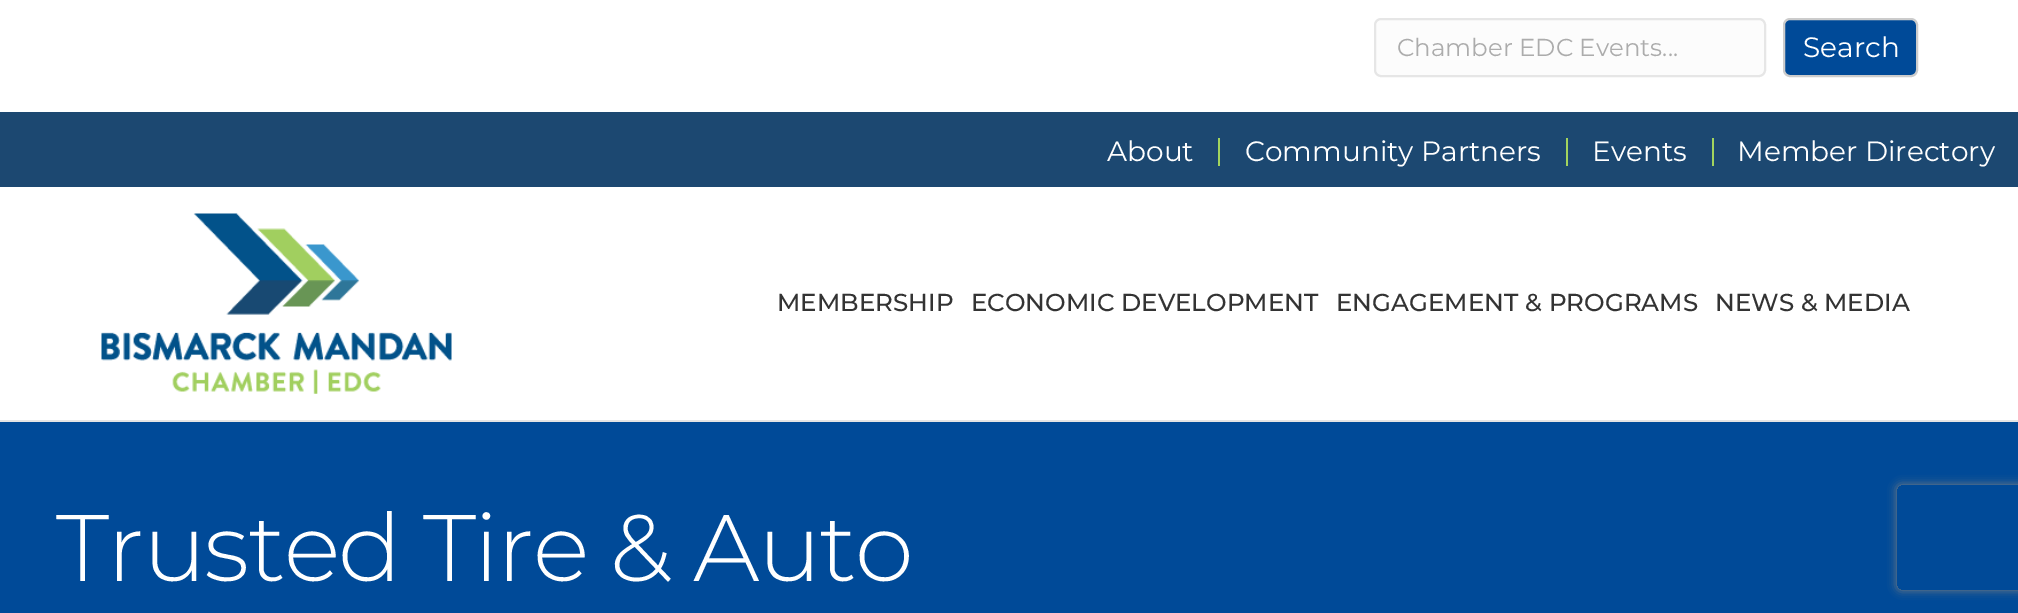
%!PS
<< /PageSize [2018 613] /PageUsesTransparency true >> setpagedevice
/rgb { dup -16 bitshift 255 div exch dup -8 bitshift 255 and 255 div exch 255 and 255 div setrgbcolor } def
/font { [ exch dup neg 0 0 3 -1 roll 0 0 ] selectfont } def
/text { moveto show } def
/alpha { dup .setfillconstantalpha .setstrokeconstantalpha } def
/roundrect { 5 dict begin { /r /h /w /y /x } { exch def } forall
  x r add y moveto x w add y 2 copy h add r arct x w add y h add x 1 index r arct
  x y h add x y r arct x y 2 copy exch w add exch r arct closepath end } def
/shadow { 12 dict begin { /a /b /q /h /w /y /x } { exch def } forall gsave /was 0 def
  9 -2 -9 { dup b mul 4 div /e exch def 1 sub .425 mul 2.718 exch exp 1 add a .99 .min exch div /now exch def
    1 1 now sub 1 was sub div sub alpha /was now def
    w h .min e 2 mul add 0 gt { x e sub y e sub w e 2 mul add h e 2 mul add
      q e add b .6 mul add w h .min 2 div e add .min 0 .max roundrect fill } if } for grestore end } def
/picture { 5 dict begin { /h /w /y /x /name } { exch def } forall
  gsave x y translate w h scale
  w h 8 [w 0 0 h 0 0] name (r) file false 3 colorimage grestore end } def
0 .pushpdf14devicefilter
0 613 translate 1 -1 scale
4 setmiterlimit
/s1 { /Montserrat-Regular 24.5 font 16#ACACAC rgb } def
/s2 { /Montserrat-Regular 28 font 16#FFFFFF rgb } def
/s3 { /Montserrat-Medium 24.5 font 16#333333 rgb } def
16#FFFFFF rgb
0 0 2018 613 rectfill
16#FCFCFC rgb
1375 19 390 57 6 roundrect gsave fill grestore
16#E6E6E6 rgb
2 setlinewidth
stroke
s1
(Chamber EDC Events...) 1397 56 text
16#004A98 rgb
1784 19 133 57 6 roundrect gsave fill grestore
16#CCCCCC rgb
stroke
s2
(Search) 1803 57 text
16#1C4871 rgb
0 112 2018 75 rectfill
s2
(About) 1107 161 text
16#A2D45E rgb
1218 138 2 28 rectfill
s2
(Community Partners) 1245 161 text
16#A2D45E rgb
1566 138 2 28 rectfill
s2
(Events) 1592 161 text
16#A2D45E rgb
1712 138 2 28 rectfill
s2
(Member Directory) 1737 161 text
16#E4E4E4 rgb
0 420 2018 2 rectfill
(pic1.raw) 101 213 351 181 picture
s3
(MEMBERSHIP) 777 311 text
(ECONOMIC DEVELOPMENT) 971 311 text
(ENGAGEMENT & PROGRAMS) 1336 311 text
(NEWS & MEDIA) 1715 311 text
16#004A98 rgb
0 422 2018 191 rectfill
/Montserrat-Light 94.5 font
16#FFFFFF rgb
56 581 moveto -1.75 0 (Trusted Tire & Auto) ashow
gsave
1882 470 moveto 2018 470 lineto 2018 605 lineto 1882 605 lineto closepath 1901 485 moveto 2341 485 lineto 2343 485 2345 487 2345 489 curveto 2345 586 lineto 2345 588 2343 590 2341 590 curveto 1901 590 lineto 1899 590 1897 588 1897 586 curveto 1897 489 lineto 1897 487 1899 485 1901 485 curveto closepath eoclip newpath
16#808080 rgb
1897 485 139 105 4 4.5 1 shadow
grestore
.poppdf14devicefilter showpage
